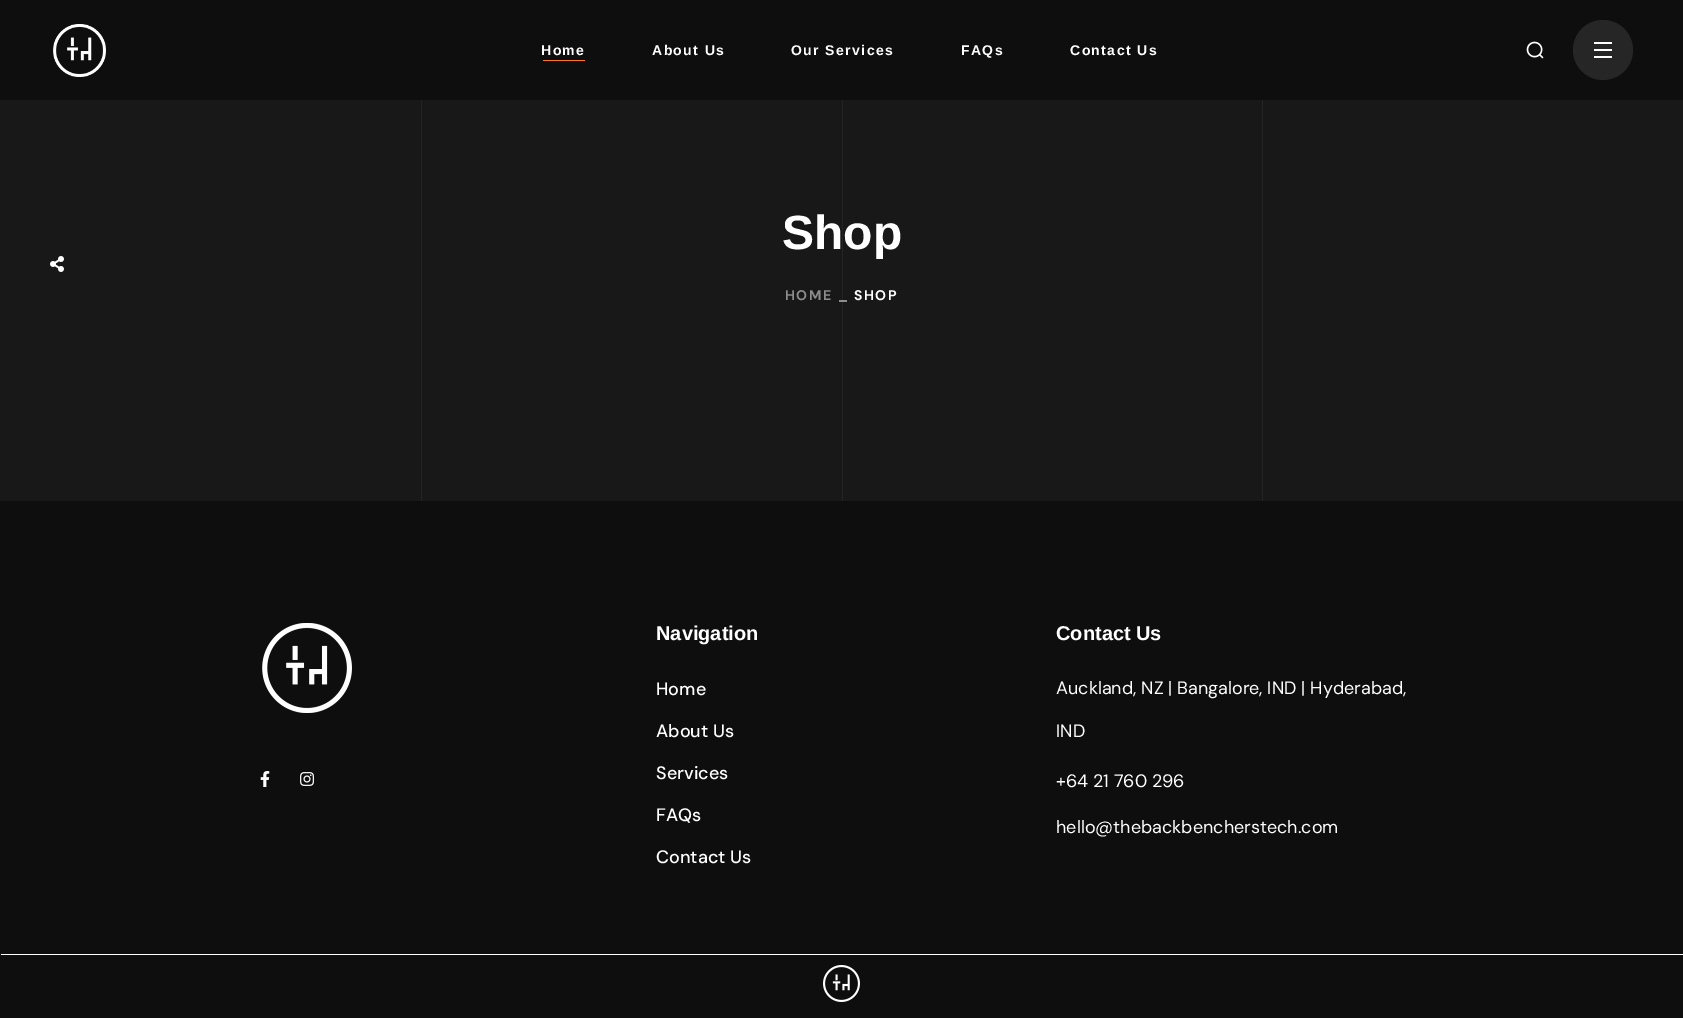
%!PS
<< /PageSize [1683 1018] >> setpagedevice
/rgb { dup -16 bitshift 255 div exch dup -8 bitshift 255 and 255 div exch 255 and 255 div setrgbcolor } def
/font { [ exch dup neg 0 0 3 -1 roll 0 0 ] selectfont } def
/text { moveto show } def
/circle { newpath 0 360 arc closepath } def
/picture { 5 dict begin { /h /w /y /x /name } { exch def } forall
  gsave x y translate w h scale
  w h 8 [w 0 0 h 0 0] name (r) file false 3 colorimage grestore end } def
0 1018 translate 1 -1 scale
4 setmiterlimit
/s1 { /Arimo-Bold 48 font 16#FFFFFF rgb } def
/s2 { /Arimo-Bold 20 font 16#FFFFFF rgb } def
/s3 { /DMSans-Medium 18 font 16#FFFFFF rgb } def
/s4 { /DMSans-Regular 18 font 16#FFFFFF rgb } def
16#181818 rgb
0 0 1683 1018 rectfill
16#8C8C8C rgb
839 300 8 2 rectfill
16#0E0E0E rgb
0 0 1683 100 rectfill
(pic1.raw) 53 24 53 53 picture
/Arimo-Bold 14 font
16#FFFFFF rgb
541 55 moveto 1.4 0 (Home) ashow
652 55 moveto 1.4 0 (About Us) ashow
791 55 moveto 1.4 0 (Our Services) ashow
961 55 moveto 1.4 0 (FAQs) ashow
1070 55 moveto 1.4 0 (Contact Us) ashow
16#FF7425 rgb
543 60 42 1 rectfill
(pic2.raw) 1526 41 18 18 picture
16#262626 rgb
1603 50 30 circle fill
16#FFFFFF rgb
1594 42 18 2 rectfill
1594 49 18 2 rectfill
1594 56 18 2 rectfill
16#242424 rgb
421 100 1 401 rectfill
842 100 1 401 rectfill
16#929292 rgb
842 300 1 2 rectfill
16#242424 rgb
1262 100 1 401 rectfill
(pic3.raw) 50 256 14 16 picture
s1
(Shop) 782 249 text
/DMSans-Bold 14 font
16#8C8C8C rgb
785 300 moveto 1.4 0 (HOME) ashow
16#FFFFFF rgb
854 300 moveto 1.4 0 (SHOP) ashow
16#0E0E0E rgb
0 501 1683 453 rectfill
(pic4.raw) 262 623 90 90 picture
(pic5.raw) 260 771 10 16 picture
(pic6.raw) 300 772 14 14 picture
s2
(Navigation) 656 640 text
s3
(Home) 656 695 text
(About Us) 656 737 text
(Services) 656 779 text
(FAQs) 656 821 text
(Contact Us) 656 863 text
s2
(Contact Us) 1056 640 text
s4
(Auckland, NZ | Bangalore, IND | Hyderabad,) 1056 694 text
(IND) 1056 737 text
(+64 21 760 296) 1056 787 text
(hello@thebackbencherstech.com) 1056 833 text
16#0E0E0E rgb
1 955 moveto 1683 955 lineto 1683 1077 lineto 0 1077 lineto 0 955 lineto closepath fill
16#FFFFFF rgb
1 954 1682 1 rectfill
(pic7.raw) 823 965 37 37 picture
showpage
